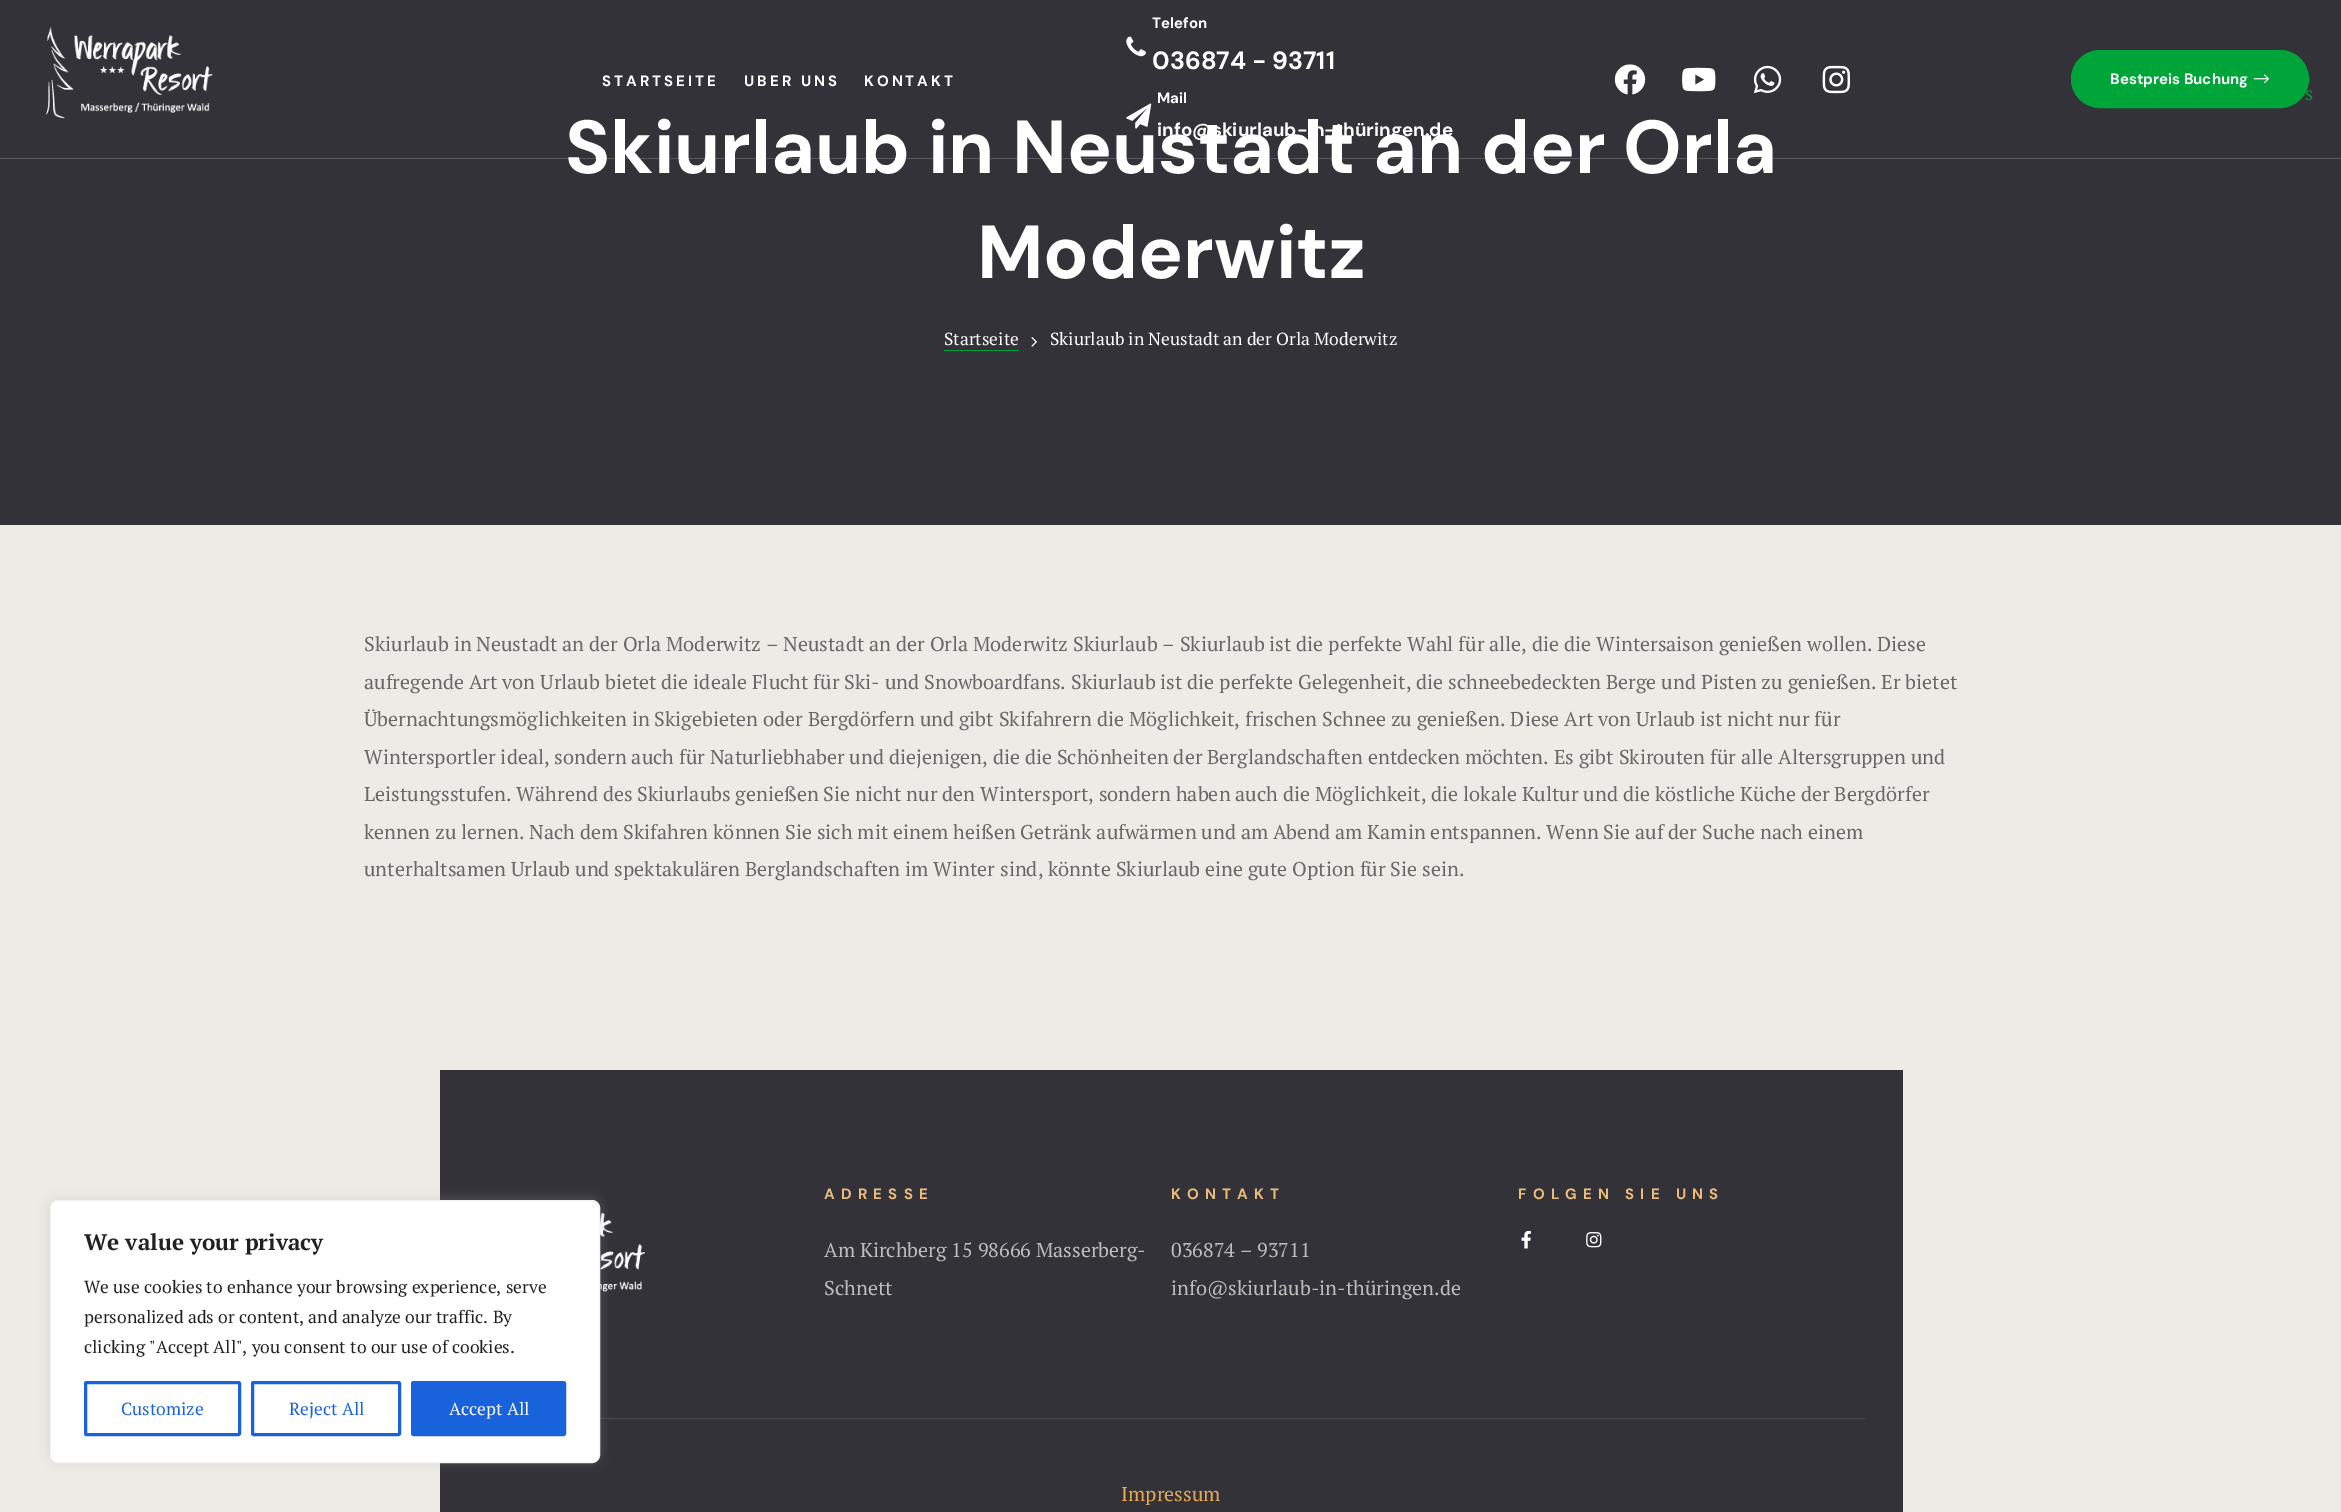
%!PS
<< /PageSize [2341 1512] /PageUsesTransparency true >> setpagedevice
/rgb { dup -16 bitshift 255 div exch dup -8 bitshift 255 and 255 div exch 255 and 255 div setrgbcolor } def
/font { [ exch dup neg 0 0 3 -1 roll 0 0 ] selectfont } def
/text { moveto show } def
/alpha { dup .setfillconstantalpha .setstrokeconstantalpha } def
/roundrect { 5 dict begin { /r /h /w /y /x } { exch def } forall
  x r add y moveto x w add y 2 copy h add r arct x w add y h add x 1 index r arct
  x y h add x y r arct x y 2 copy exch w add exch r arct closepath end } def
/shadow { 12 dict begin { /a /b /q /h /w /y /x } { exch def } forall gsave /was 0 def
  9 -2 -9 { dup b mul 4 div /e exch def 1 sub .425 mul 2.718 exch exp 1 add a .99 .min exch div /now exch def
    1 1 now sub 1 was sub div sub alpha /was now def
    w h .min e 2 mul add 0 gt { x e sub y e sub w e 2 mul add h e 2 mul add
      q e add b .6 mul add w h .min 2 div e add .min 0 .max roundrect fill } if } for grestore end } def
/picture { 5 dict begin { /h /w /y /x /name } { exch def } forall
  gsave x y translate w h scale
  w h 8 [w 0 0 h 0 0] name (r) file false 3 colorimage grestore end } def
0 .pushpdf14devicefilter
0 1512 translate 1 -1 scale
4 setmiterlimit
/s1 { /PTSerif-Bold 22.5 font 16#212121 rgb } def
/s2 { /PTSerif-Regular 17.5 font 16#212121 rgb } def
/s3 { /PTSerif-Regular 17.5 font 16#1863DC rgb } def
/s4 { /PTSerif-Regular 17.5 font 16#FFFFFF rgb } def
/s5 { /DMSans-Bold 15 font 16#FFFFFF rgb } def
/s6 { /DMSans-Bold 25 font 16#FFFFFF rgb } def
/s7 { /DMSans-Bold 18.75 font 16#FFFFFF rgb } def
/s8 { /PTSerif-Regular 18.75 font 16#0A963B rgb } def
/s9 { /DMSans-Bold 75 font 16#FFFFFF rgb } def
/s10 { /PTSerif-Regular 20 font 16#686868 rgb } def
/s11 { /PTSerif-Regular 20 font 16#BDBDBD rgb } def
/s12 { /PTSerif-Regular 20 font 16#E4A853 rgb } def
16#EDEBE5 rgb
0 0 2341 1512 rectfill
16#333239 rgb
440 1070 1463 442 rectfill
(pic12.raw) 600 1212 45 80 picture
16#48474C rgb
600 1418 1265 1 rectfill
16#ACABAB rgb
50 1199 550 262 8 6 0.3 shadow
16#FFFFFF rgb
50.5 1200.5 549 262 7.5 roundrect gsave fill grestore
16#F4F4F4 rgb
stroke
s1
(We value your privacy) 84 1250 text
s2
(We use cookies to enhance your browsing experience, serve) 84 1293 text
(personalized ads or content, and analyze our traffic. By) 84 1323 text
(clicking "Accept All", you consent to our use of cookies.) 84 1353 text
16#1863DC rgb
3 setlinewidth
85.5 1382.5 154 52 1 roundrect stroke
(Customize) 121 1415 text
252.5 1382.5 147 52 1 roundrect stroke
(Reject All) 289 1415 text
412.5 1382.5 152 52 1 roundrect gsave fill grestore
stroke
s4
(Accept All) 449 1415 text
16#333239 rgb
0 0 2341 525 rectfill
/DMSans-Bold 75 font
16#FFFFFF rgb
565 173 moveto -0.25 0 32 (Skiurlaub in Neustadt an der Orla) widthshow
0.19 alpha
0 158 2341 1 rectfill
1 alpha
(pic1.raw) 46 27 167 92 picture
(pic2.raw) 1126 36 20 21 picture
s5
(Telefon) 1152 28 text
s6
(036874 - 93711) 1152 69 text
(pic3.raw) 1126 103 26 26 picture
s5
(Mail) 1157 103 text
s7
(info@skiurlaub-in-thüringen.de) 1157 136 text
(pic4.raw) 1614 64 32 31 picture
(pic5.raw) 1682 67 34 25 picture
(pic6.raw) 1753 65 29 29 picture
(pic7.raw) 1822 65 28 29 picture
16#00A539 rgb
2071.5 50.5 237 57 28.5 roundrect gsave fill grestore
1 setlinewidth
stroke
s5
(Bestpreis Buchung) 2110 84 text
(pic8.raw) 2253 74 16 10 picture
602 86 moveto 3 0 (STARTSEITE) ashow
744 86 moveto 3 0 (UBER UNS) ashow
864 86 moveto 3 0 (KONTAKT) ashow
s8
(s) 2305 100 text
s9
(Moderwitz) 977 278 text
s4
(Startseite) 944 345 text
16#00A539 rgb
944 350 75 1 rectfill
(pic9.raw) 1031 337 6 10 picture
s4
(Skiurlaub in Neustadt an der Orla Moderwitz) 1050 345 text
s10
(Skiurlaub in Neustadt an der Orla Moderwitz – Neustadt an der Orla Moderwitz Skiurlaub – Skiurlaub ist die perfekte Wahl für alle, die die Wintersaison genießen wollen. Diese) 364 651 text
(aufregende Art von Urlaub bietet die ideale Flucht für Ski- und Snowboardfans. Skiurlaub ist die perfekte Gelegenheit, die schneebedeckten Berge und Pisten zu genießen. Er bietet) 364 689 text
(Übernachtungsmöglichkeiten in Skigebieten oder Bergdörfern und gibt Skifahrern die Möglichkeit, frischen Schnee zu genießen. Diese Art von Urlaub ist nicht nur für) 364 726 text
(Wintersportler ideal, sondern auch für Naturliebhaber und diejenigen, die die Schönheiten der Berglandschaften entdecken möchten. Es gibt Skirouten für alle Altersgruppen und) 364 764 text
(Leistungsstufen. Während des Skiurlaubs genießen Sie nicht nur den Wintersport, sondern haben auch die Möglichkeit, die lokale Kultur und die köstliche Küche der Bergdörfer) 364 801 text
(kennen zu lernen. Nach dem Skifahren können Sie sich mit einem heißen Getränk aufwärmen und am Abend am Kamin entspannen. Wenn Sie auf der Suche nach einem) 364 839 text
(unterhaltsamen Urlaub und spektakulären Berglandschaften im Winter sind, könnte Skiurlaub eine gute Option für Sie sein.) 364 876 text
/DMSans-Bold 15 font
16#EBBC79 rgb
824 1199 moveto 6.25 0 (ADRESSE) ashow
s11
(Am Kirchberg 15 98666 Masserberg-) 824 1257 text
(Schnett) 824 1295 text
/DMSans-Bold 15 font
16#EBBC79 rgb
1171 1199 moveto 6.25 0 (KONTAKT) ashow
s11
(036874 – 93711) 1171 1257 text
(info@skiurlaub-in-thüringen.de) 1171 1295 text
/DMSans-Bold 15 font
16#EBBC79 rgb
1518 1199 moveto 6.25 0 (FOLGEN SIE UNS) ashow
(pic10.raw) 1521 1230 10 19 picture
(pic11.raw) 1586 1232 16 16 picture
s12
(Impressum) 1121 1501 text
.poppdf14devicefilter showpage
